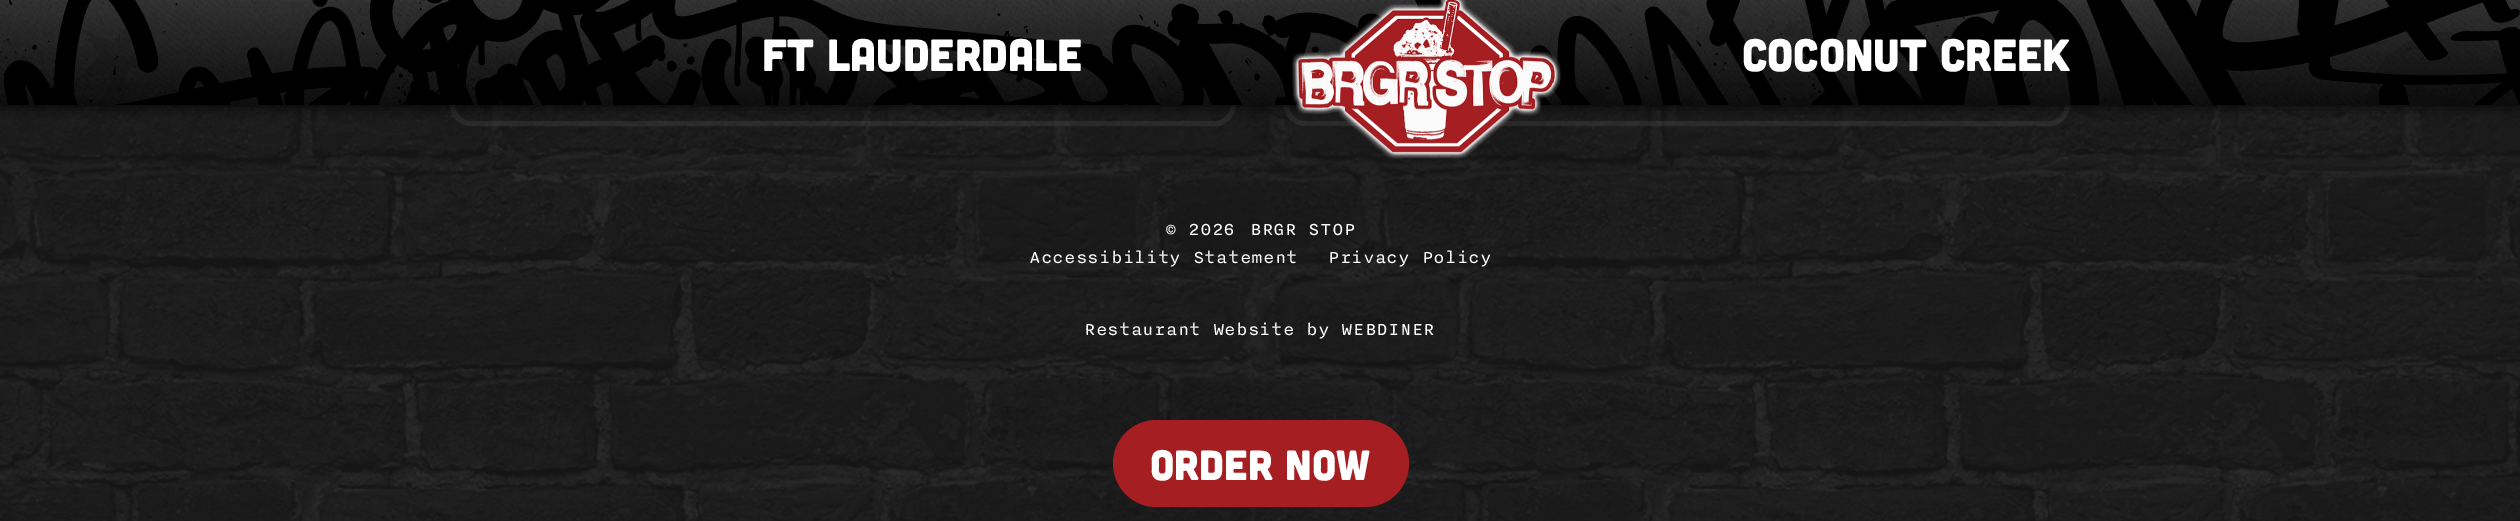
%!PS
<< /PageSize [2520 521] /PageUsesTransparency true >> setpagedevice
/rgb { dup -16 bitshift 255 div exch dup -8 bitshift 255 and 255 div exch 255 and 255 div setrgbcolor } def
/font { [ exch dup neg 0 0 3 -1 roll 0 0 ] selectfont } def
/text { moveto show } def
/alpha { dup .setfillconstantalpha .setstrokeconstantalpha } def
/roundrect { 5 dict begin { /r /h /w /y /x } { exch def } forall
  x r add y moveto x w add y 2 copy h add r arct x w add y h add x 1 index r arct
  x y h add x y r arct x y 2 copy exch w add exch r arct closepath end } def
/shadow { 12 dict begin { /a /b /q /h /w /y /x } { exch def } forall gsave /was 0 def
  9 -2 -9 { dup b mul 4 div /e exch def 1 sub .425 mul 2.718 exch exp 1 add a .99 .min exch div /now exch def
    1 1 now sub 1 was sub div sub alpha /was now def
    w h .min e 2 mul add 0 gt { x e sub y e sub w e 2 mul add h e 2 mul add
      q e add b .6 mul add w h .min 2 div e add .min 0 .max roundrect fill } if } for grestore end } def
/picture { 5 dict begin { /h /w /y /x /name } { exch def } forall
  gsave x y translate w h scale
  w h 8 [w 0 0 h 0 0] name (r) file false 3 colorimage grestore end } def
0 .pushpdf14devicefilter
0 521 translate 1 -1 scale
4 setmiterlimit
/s1 { /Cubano-Regular 45 font 16#FFFFFF rgb } def
/s2 { /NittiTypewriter-Regular 19.5 font 16#FFFFFF rgb } def
/s3 { /Cubano-Regular 42 font 16#FFFFFF rgb } def
16#151515 rgb
0 0 2520 521 rectfill
(pic3.raw) 0 0 2520 521 picture
0.12 alpha
16#999999 rgb
5 setlinewidth
452.5 -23.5 781 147 18.5 roundrect stroke
1286.5 -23.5 781 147 18.5 roundrect stroke
gsave
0 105 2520 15 rectclip
1 alpha
16#000000 rgb
0 0 2520 105 0 7.5 1 shadow
grestore
1 alpha
(pic1.raw) 0 0 2520 105 picture
s1
(Ft Lauderdale) 762 71 text
(pic2.raw) 1292 0 269 159 picture
(Coconut Creek) 1742 71 text
s2
(© 2026) 1165 235 text
(BRGR STOP) 1250 235 text
(Accessibility Statement) 1029 263 text
(Privacy Policy) 1328 263 text
(Restaurant Website by WEBDINER) 1084 335 text
16#A51E22 rgb
1113 420 296 87 43.5 roundrect fill
s3
(ORDER NOW) 1150 480 text
.poppdf14devicefilter showpage
